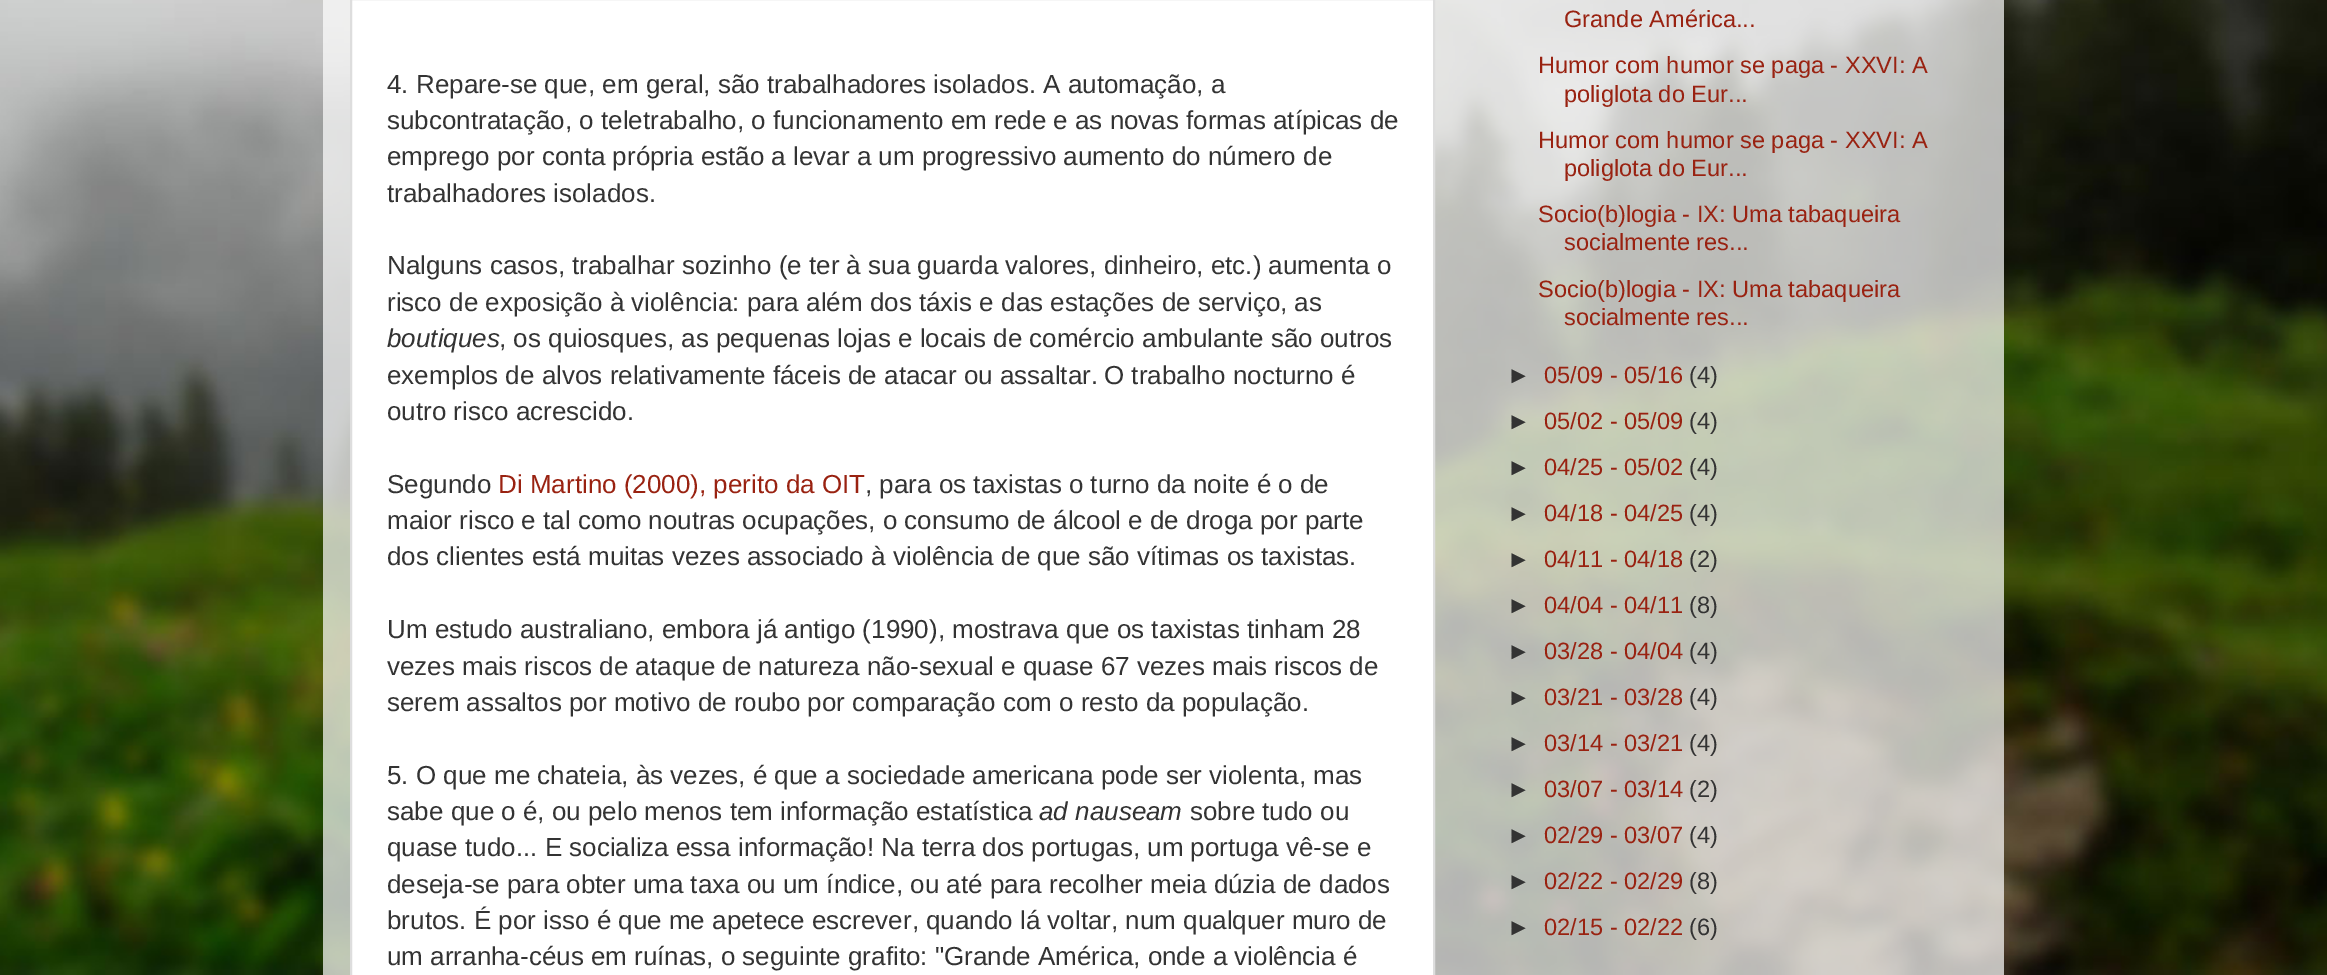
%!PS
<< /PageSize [2327 975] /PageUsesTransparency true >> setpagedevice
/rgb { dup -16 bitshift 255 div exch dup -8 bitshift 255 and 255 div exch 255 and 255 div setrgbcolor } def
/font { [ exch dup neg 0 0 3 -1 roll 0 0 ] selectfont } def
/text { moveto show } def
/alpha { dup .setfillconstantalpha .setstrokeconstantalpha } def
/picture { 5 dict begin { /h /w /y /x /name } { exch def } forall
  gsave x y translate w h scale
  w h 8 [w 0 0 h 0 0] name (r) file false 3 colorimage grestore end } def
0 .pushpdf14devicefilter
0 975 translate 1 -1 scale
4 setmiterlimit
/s1 { /LiberationSans-Regular 26 font 16#333333 rgb } def
/s2 { /LiberationSans-Italic 26 font 16#333333 rgb } def
/s3 { /LiberationSans-Regular 26 font 16#992211 rgb } def
/s4 { /LiberationSans-Regular 23.6 font 16#992211 rgb } def
/s5 { /LiberationSans-Regular 23.6 font 16#333333 rgb } def
16#FFFFFF rgb
0 0 2327 975 rectfill
(pic1.raw) 0 0 2327 975 picture
0.7 alpha
323 0 1681 975 rectfill
1 alpha
351 -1 moveto 1434 -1 lineto 1434 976 lineto 351 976 lineto closepath gsave fill grestore
16#DDDDDD rgb
2 setlinewidth
stroke
s1
(4. Repare-se que, em geral, são trabalhadores isolados. A automação, a) 387 93 text
(subcontratação, o teletrabalho, o funcionamento em rede e as novas formas atípicas de) 387 129 text
(emprego por conta própria estão a levar a um progressivo aumento do número de) 387 165 text
(trabalhadores isolados.) 387 202 text
(Nalguns casos, trabalhar sozinho \(e ter à sua guarda valores, dinheiro, etc.\) aumenta o) 387 274 text
(risco de exposição à violência: para além dos táxis e das estações de serviço, as) 387 311 text
s2
(boutiques) 387 347 text
s1
(, os quiosques, as pequenas lojas e locais de comércio ambulante são outros) 499 347 text
(exemplos de alvos relativamente fáceis de atacar ou assaltar.) 387 384 text
(O trabalho nocturno é) 1104 384 text
(outro risco acrescido.) 387 420 text
(Segundo) 387 493 text
s3
(Di Martino \(2000\), perito da OIT) 498 493 text
s1
(, para os taxistas o turno da noite é o de) 865 493 text
(maior risco e tal como noutras ocupações, o consumo de álcool e de droga por parte) 387 529 text
(dos clientes está muitas vezes associado à violência de que são vítimas os taxistas.) 387 565 text
(Um estudo australiano, embora já antigo \(1990\), mostrava que os taxistas tinham 28) 387 638 text
(vezes mais riscos de ataque de natureza não-sexual e quase 67 vezes mais riscos de) 387 675 text
(serem assaltos por motivo de roubo por comparação com o resto da população.) 387 711 text
(5. O que me chateia, às vezes, é que a sociedade americana pode ser violenta, mas) 387 784 text
(sabe que o é, ou pelo menos tem informação estatística) 387 820 text
s2
(ad nauseam) 1039 820 text
s1
(sobre tudo ou) 1190 820 text
(quase tudo... E socializa essa informação! Na terra dos portugas, um portuga vê-se e) 387 856 text
(deseja-se para obter uma taxa ou um índice, ou até para recolher meia dúzia de dados) 387 893 text
(brutos. É por isso é que me apetece escrever, quando lá voltar, num qualquer muro de) 387 929 text
(um arranha-céus em ruínas, o seguinte grafito: "Grande América, onde a violência é) 387 965 text
s4
(Grande América...) 1564 27 text
(Humor com humor se paga - XXVI: A) 1538 73 text
(poliglota do Eur...) 1564 102 text
(Humor com humor se paga - XXVI: A) 1538 148 text
(poliglota do Eur...) 1564 176 text
(Socio\(b\)logia - IX: Uma tabaqueira) 1538 222 text
(socialmente res...) 1564 250 text
(Socio\(b\)logia - IX: Uma tabaqueira) 1538 297 text
(socialmente res...) 1564 325 text
s5
(►) 1507 383 text
s4
(05/09 - 05/16) 1544 383 text
s5
(\(4\)) 1689 383 text
(►) 1507 429 text
s4
(05/02 - 05/09) 1544 429 text
s5
(\(4\)) 1689 429 text
(►) 1507 475 text
s4
(04/25 - 05/02) 1544 475 text
s5
(\(4\)) 1689 475 text
(►) 1507 521 text
s4
(04/18 - 04/25) 1544 521 text
s5
(\(4\)) 1689 521 text
(►) 1507 567 text
s4
(04/11 - 04/18) 1544 567 text
s5
(\(2\)) 1689 567 text
(►) 1507 613 text
s4
(04/04 - 04/11) 1544 613 text
s5
(\(8\)) 1689 613 text
(►) 1507 659 text
s4
(03/28 - 04/04) 1544 659 text
s5
(\(4\)) 1689 659 text
(►) 1507 705 text
s4
(03/21 - 03/28) 1544 705 text
s5
(\(4\)) 1689 705 text
(►) 1507 751 text
s4
(03/14 - 03/21) 1544 751 text
s5
(\(4\)) 1689 751 text
(►) 1507 797 text
s4
(03/07 - 03/14) 1544 797 text
s5
(\(2\)) 1689 797 text
(►) 1507 843 text
s4
(02/29 - 03/07) 1544 843 text
s5
(\(4\)) 1689 843 text
(►) 1507 889 text
s4
(02/22 - 02/29) 1544 889 text
s5
(\(8\)) 1689 889 text
(►) 1507 935 text
s4
(02/15 - 02/22) 1544 935 text
s5
(\(6\)) 1689 935 text
.poppdf14devicefilter showpage
